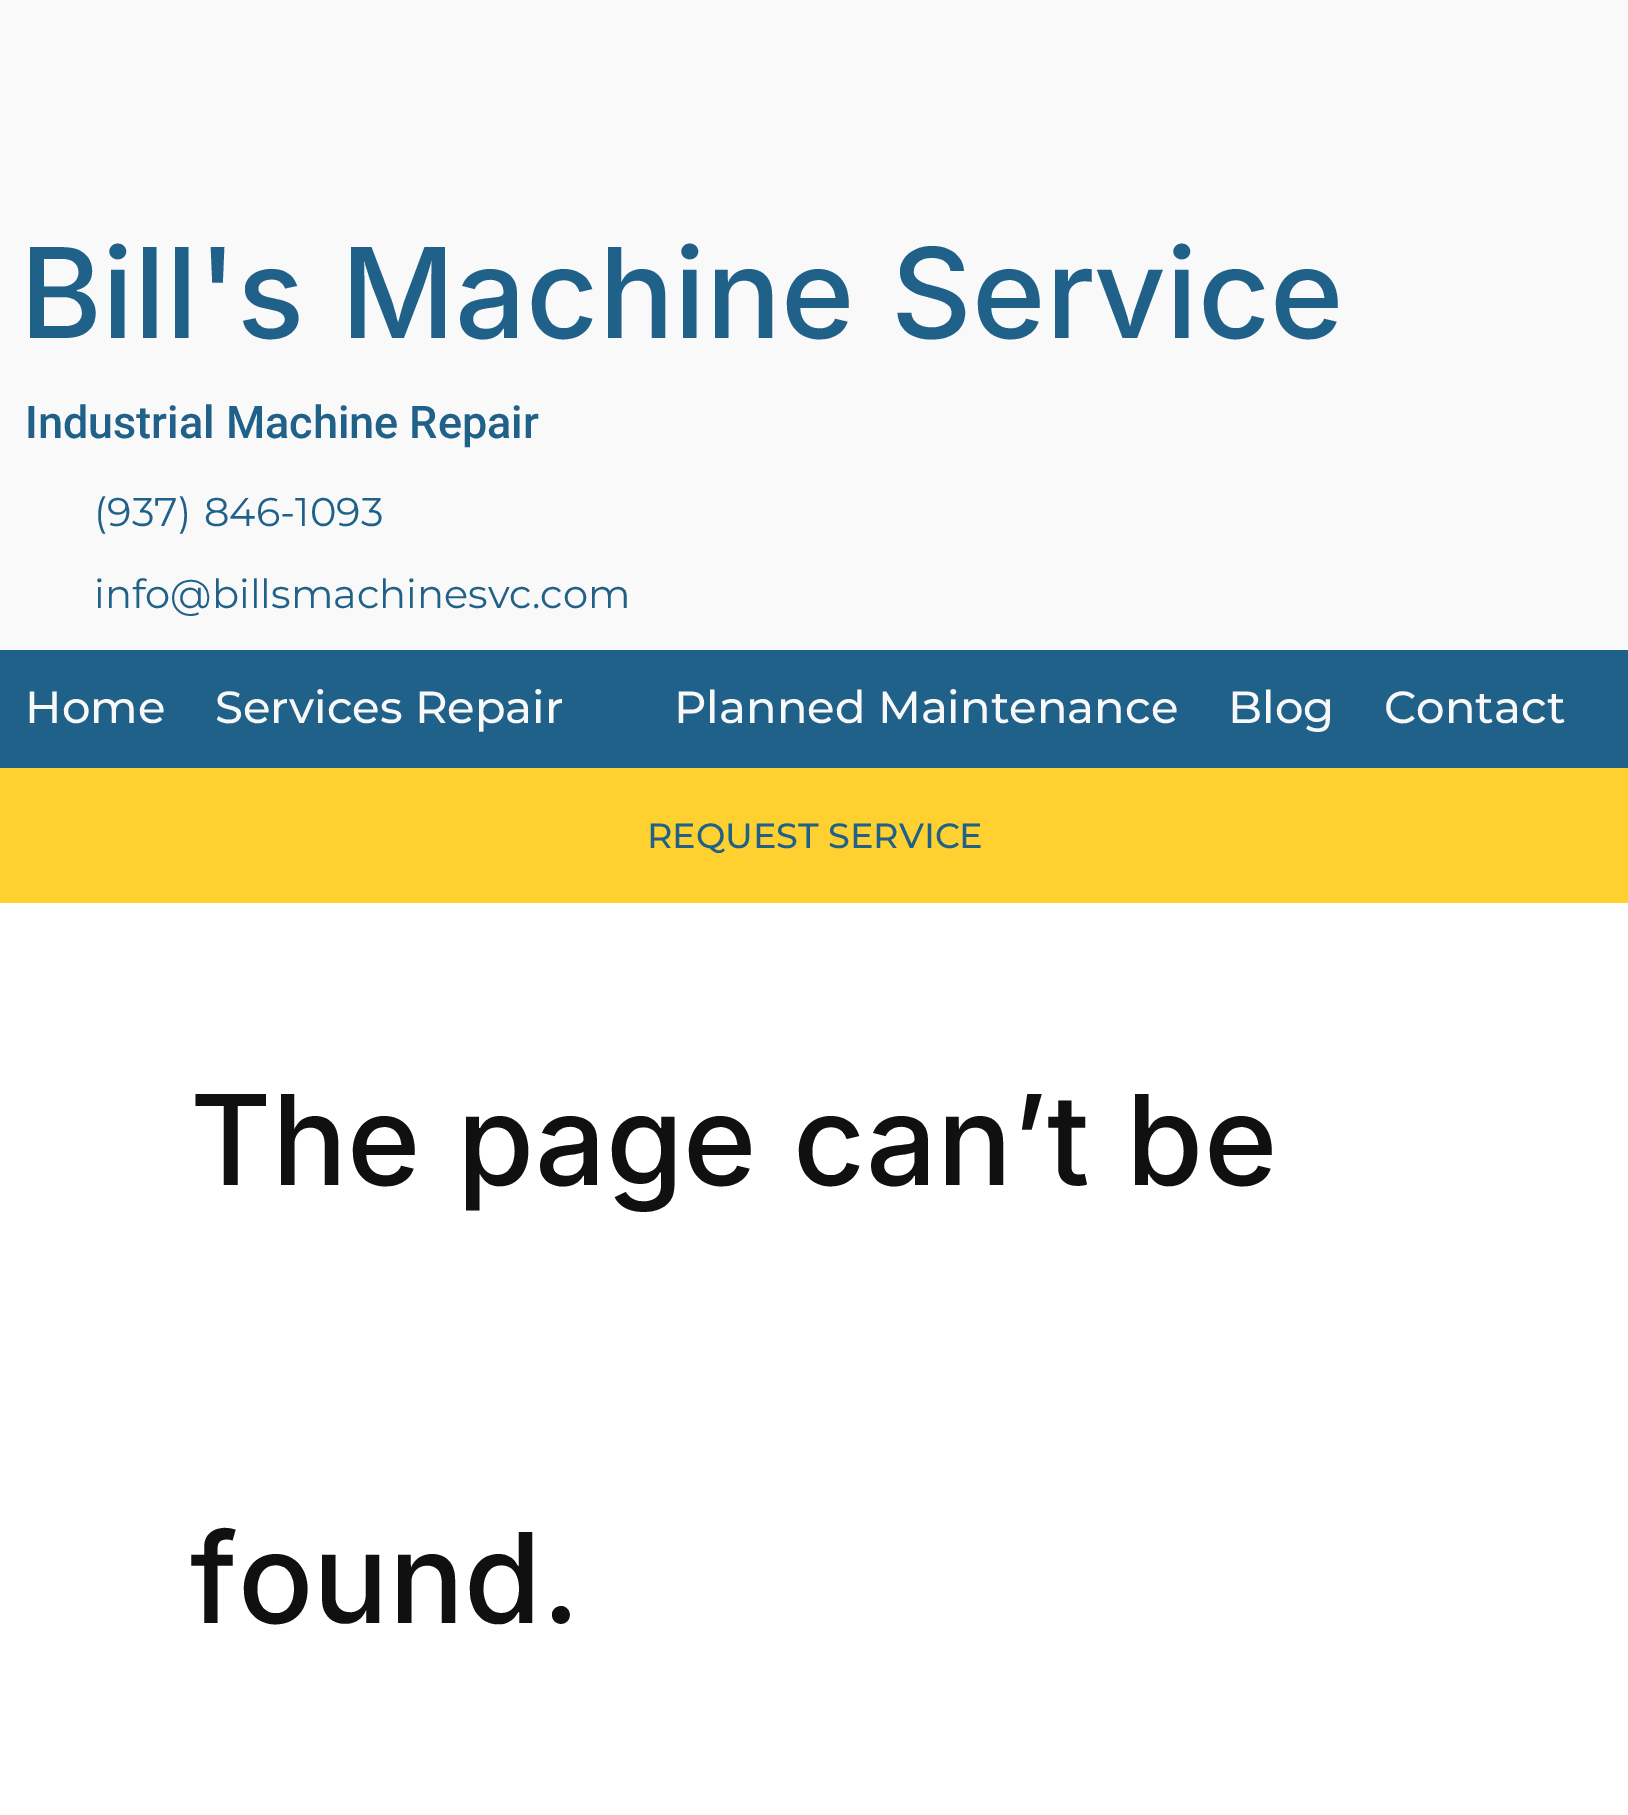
%!PS
<< /PageSize [1628 1815] >> setpagedevice
/rgb { dup -16 bitshift 255 div exch dup -8 bitshift 255 and 255 div exch 255 and 255 div setrgbcolor } def
/font { [ exch dup neg 0 0 3 -1 roll 0 0 ] selectfont } def
/text { moveto show } def
0 1815 translate 1 -1 scale
4 setmiterlimit
/s1 { /Roboto-Medium 45 font 16#206189 rgb } def
/s2 { /Montserrat-Regular 40 font 16#206189 rgb } def
/s3 { /Montserrat-Medium 45 font 16#F8F8F8 rgb } def
/s4 { /Montserrat-Medium 35 font 16#206189 rgb } def
16#FFFFFF rgb
0 0 1628 1815 rectfill
16#F9F9F9 rgb
0 0 1628 650 rectfill
/Inter-Medium 125 font
16#206189 rgb
20 338 moveto 2.5 0 32 0.25 0 (Bill's Machine Service) awidthshow
s1
(Industrial Machine Repair) 25 438 text
/Montserrat-Regular 40 font
94 526 moveto 2.5 0 32 (\(937\) 846-1093) widthshow
(info@billsmachinesvc.com) 94 608 text
0 650 1628 118 rectfill
s3
(Home) 25 723 text
(Services Repair) 215 723 text
(Planned Maintenance) 674 723 text
(Blog) 1228 723 text
(Contact) 1384 723 text
16#FFD130 rgb
0 768 1628 135 rectfill
s4
(REQUEST SERVICE) 647 848 text
/Inter-Medium 125 font
16#101010 rgb
190 1185 moveto 2.5 0 32 0.25 0 (The page can’t be) awidthshow
190 1623 moveto 0.25 0 (found.) ashow
showpage
